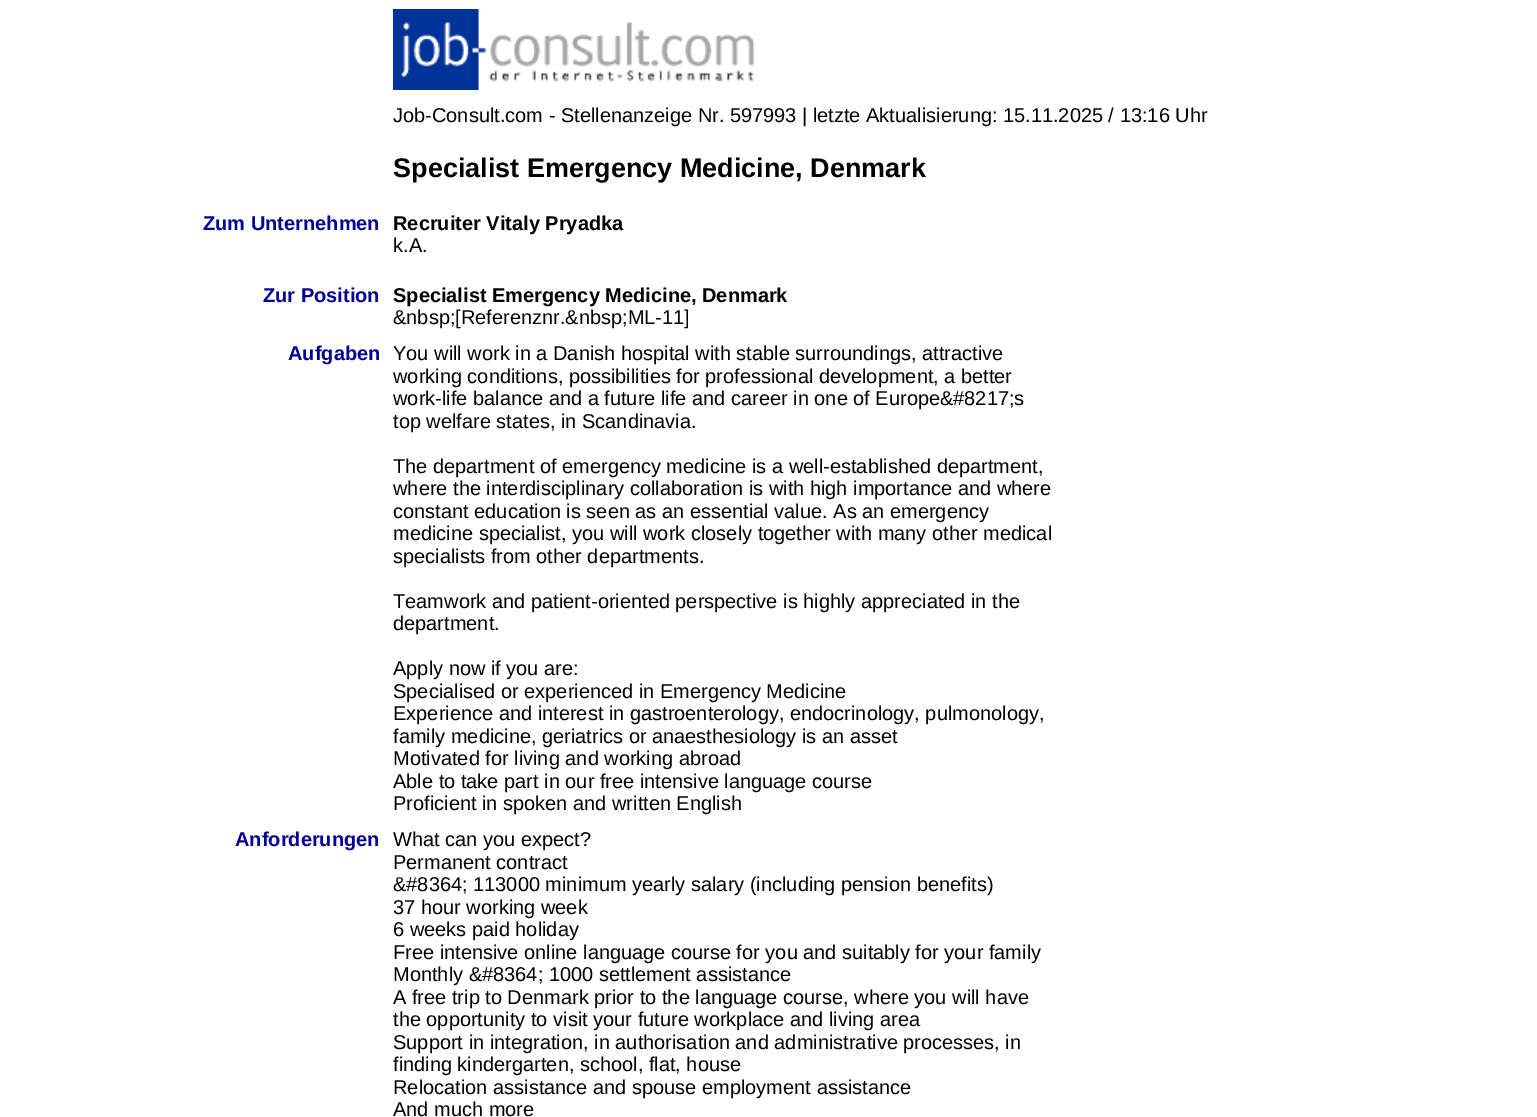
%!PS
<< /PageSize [1537 1117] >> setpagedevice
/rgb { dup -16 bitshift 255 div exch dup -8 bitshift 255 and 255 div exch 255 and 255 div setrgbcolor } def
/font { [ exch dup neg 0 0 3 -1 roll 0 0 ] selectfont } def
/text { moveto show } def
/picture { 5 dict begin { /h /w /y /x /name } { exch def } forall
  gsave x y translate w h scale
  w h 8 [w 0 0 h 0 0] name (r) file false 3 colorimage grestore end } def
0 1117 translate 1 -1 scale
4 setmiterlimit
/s1 { /LiberationSans-Regular 20 font 16#000000 rgb } def
/s2 { /LiberationSans-Bold 27 font 16#000000 rgb } def
/s3 { /LiberationSans-Bold 20 font 16#000099 rgb } def
/s4 { /LiberationSans-Bold 20 font 16#000000 rgb } def
16#FFFFFF rgb
0 0 1537 1117 rectfill
(pic1.raw) 393 9 362 81 picture
s1
(Job-Consult.com - Stellenanzeige Nr. 597993 | letzte Aktualisierung: 15.11.2025 / 13:16 Uhr) 393 122 text
s2
(Specialist Emergency Medicine, Denmark) 393 177 text
s3
(Zum Unternehmen) 203 230 text
s4
(Recruiter Vitaly Pryadka) 393 230 text
s1
(k.A.) 393 252 text
s3
(Zur Position) 263 302 text
s4
(Specialist Emergency Medicine, Denmark) 393 302 text
s1
(&nbsp;[Referenznr.&nbsp;ML-11]) 393 324 text
s3
(Aufgaben) 288 360 text
s1
(You will work in a Danish hospital with stable surroundings, attractive) 393 360 text
(working conditions, possibilities for professional development, a better) 393 383 text
(work-life balance and a future life and career in one of Europe&#8217;s) 393 405 text
(top welfare states, in Scandinavia.) 393 428 text
(The department of emergency medicine is a well-established department,) 393 473 text
(where the interdisciplinary collaboration is with high importance and where) 393 495 text
(constant education is seen as an essential value. As an emergency) 393 518 text
(medicine specialist, you will work closely together with many other medical) 393 540 text
(specialists from other departments.) 393 563 text
(Teamwork and patient-oriented perspective is highly appreciated in the) 393 608 text
(department.) 393 630 text
(Apply now if you are:) 393 675 text
(Specialised or experienced in Emergency Medicine) 393 698 text
(Experience and interest in gastroenterology, endocrinology, pulmonology,) 393 720 text
(family medicine, geriatrics or anaesthesiology is an asset) 393 743 text
(Motivated for living and working abroad) 393 765 text
(Able to take part in our free intensive language course) 393 788 text
(Proficient in spoken and written English) 393 810 text
s3
(Anforderungen) 235 846 text
s1
(What can you expect?) 393 846 text
(Permanent contract) 393 869 text
(&#8364; 113000 minimum yearly salary \(including pension benefits\)) 393 891 text
(37 hour working week) 393 914 text
(6 weeks paid holiday) 393 936 text
(Free intensive online language course for you and suitably for your family) 393 959 text
(Monthly &#8364; 1000 settlement assistance) 393 981 text
(A free trip to Denmark prior to the language course, where you will have) 393 1004 text
(the opportunity to visit your future workplace and living area) 393 1026 text
(Support in integration, in authorisation and administrative processes, in) 393 1049 text
(finding kindergarten, school, flat, house) 393 1071 text
(Relocation assistance and spouse employment assistance) 393 1094 text
(And much more) 393 1116 text
showpage
